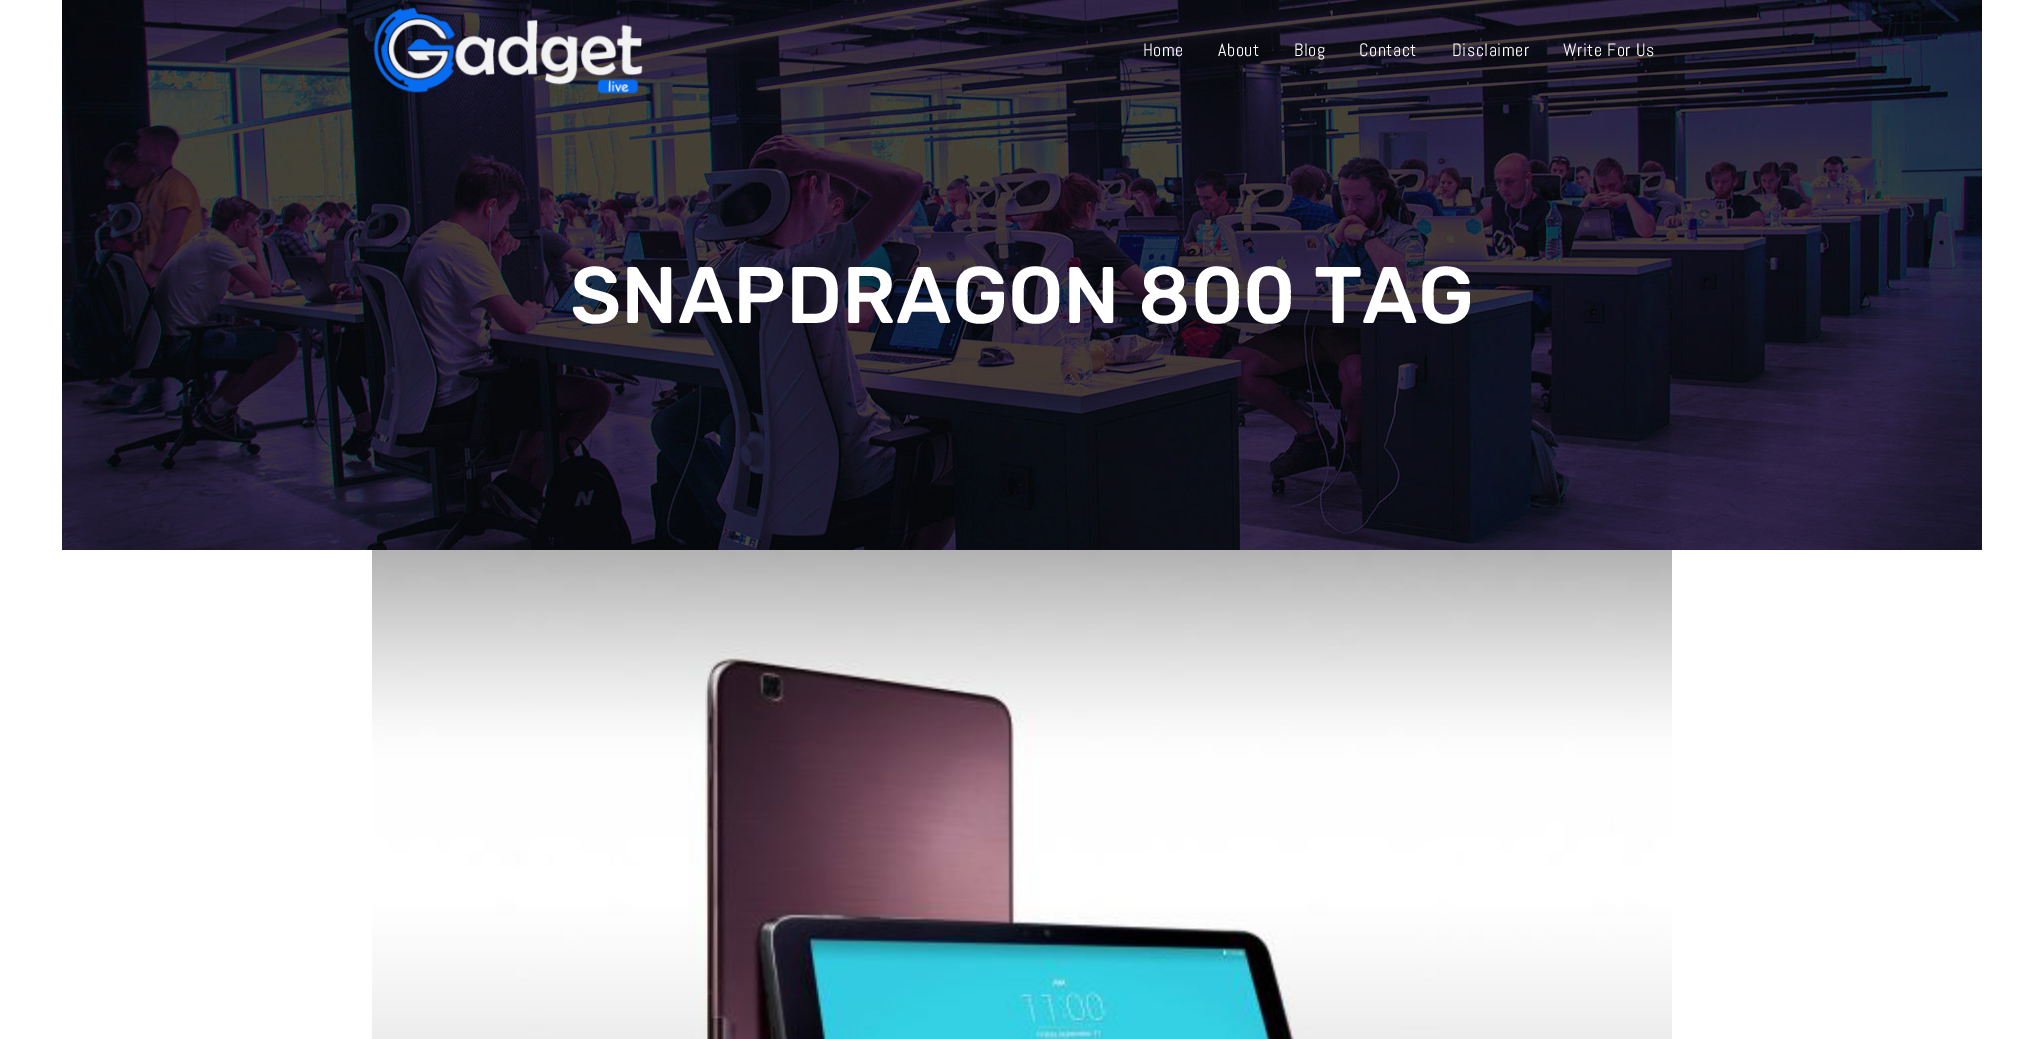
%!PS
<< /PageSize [2043 1039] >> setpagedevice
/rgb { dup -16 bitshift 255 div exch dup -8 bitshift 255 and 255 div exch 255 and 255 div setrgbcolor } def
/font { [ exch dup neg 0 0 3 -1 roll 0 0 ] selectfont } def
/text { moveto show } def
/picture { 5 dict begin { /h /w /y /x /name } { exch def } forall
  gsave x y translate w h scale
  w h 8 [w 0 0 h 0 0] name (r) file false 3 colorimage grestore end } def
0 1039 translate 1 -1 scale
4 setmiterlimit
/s1 { /Rubik-Medium 80 font 16#FFFFFF rgb } def
16#FFFFFF rgb
0 0 2043 1039 rectfill
(pic2.raw) 62 0 1920 550 picture
(pic1.raw) 373 7 270 87 picture
/Abel-Regular 18 font
1143 56 moveto 0.5 0 (Home) ashow
1218 56 moveto 0.5 0 (About) ashow
1294 56 moveto 0.5 0 (Blog) ashow
1359 56 moveto 0.5 0 (Contact) ashow
1452 56 moveto 0.5 0 (Disclaimer) ashow
1563 56 moveto 0.5 0 (Write For Us) ashow
s1
(SNAPDRAGON 800 TAG) 570 323 text
(pic3.raw) 372 550 1300 489 picture
showpage
